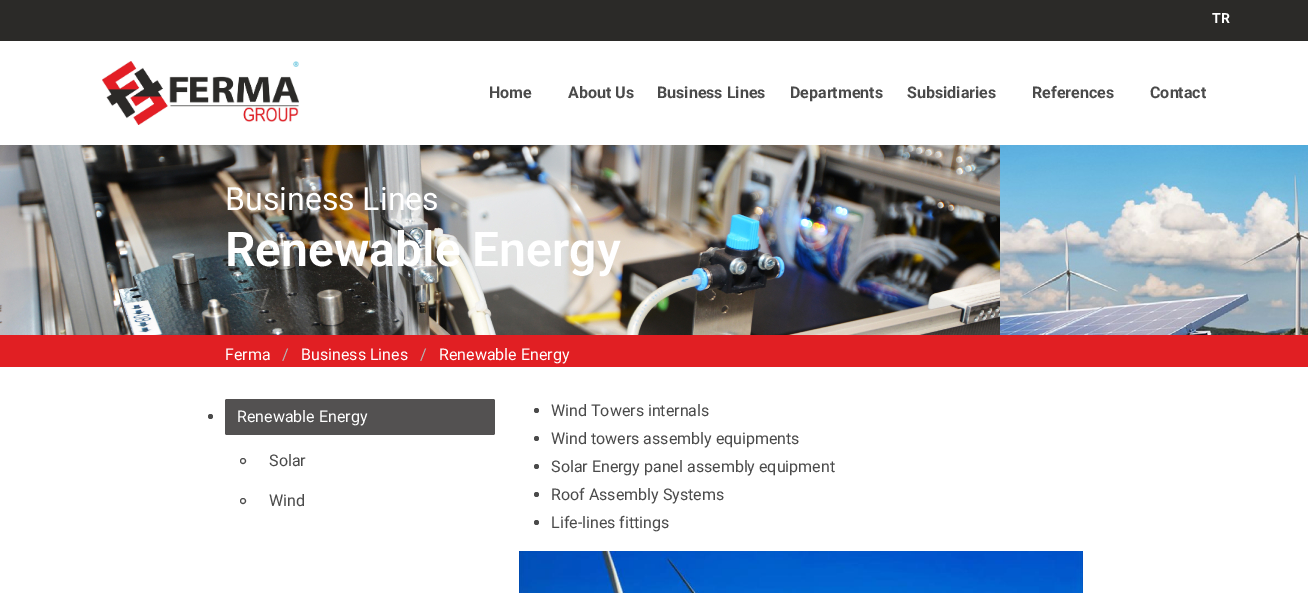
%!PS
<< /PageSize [1308 593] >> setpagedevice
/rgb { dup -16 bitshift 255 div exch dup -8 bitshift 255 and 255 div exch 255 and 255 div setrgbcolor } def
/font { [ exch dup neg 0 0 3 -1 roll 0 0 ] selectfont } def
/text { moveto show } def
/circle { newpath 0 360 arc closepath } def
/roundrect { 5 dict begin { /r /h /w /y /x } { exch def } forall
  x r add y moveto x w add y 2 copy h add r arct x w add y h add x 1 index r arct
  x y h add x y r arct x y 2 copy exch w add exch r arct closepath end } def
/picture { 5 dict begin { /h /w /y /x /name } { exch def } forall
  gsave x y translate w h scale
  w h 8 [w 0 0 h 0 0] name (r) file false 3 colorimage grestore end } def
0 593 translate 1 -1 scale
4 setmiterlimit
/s1 { /Roboto-Bold 14 font 16#FFFFFF rgb } def
/s2 { /Roboto-Bold 16 font 16#4A4A4A rgb } def
/s3 { /Roboto-Regular 32 font 16#FFFFFF rgb } def
/s4 { /Roboto-SemiBold 48 font 16#FFFFFF rgb } def
/s5 { /Roboto-Regular 16 font 16#FFFFFF rgb } def
/s6 { /Roboto-Regular 16 font 16#B5B5B5 rgb } def
/s7 { /Roboto-Regular 16 font 16#4A4A4A rgb } def
16#FFFFFF rgb
0 0 1308 593 rectfill
16#2B2A28 rgb
0 0 1308 41 rectfill
s1
(TR) 1212 23 text
(pic1.raw) 102 61 197 64 picture
s2
(Home) 489 98 text
(About Us) 568 98 text
(Business Lines) 657 98 text
(Departments) 790 98 text
(Subsidiaries) 907 98 text
(References) 1032 98 text
(Contact) 1150 98 text
(pic2.raw) 0 145 1308 190 picture
s3
(Business Lines) 225 210 text
s4
(Renewable Energy) 225 266 text
16#E11F23 rgb
0 335 1308 32 rectfill
s5
(Ferma) 225 360 text
s6
(/) 282 360 text
s5
(Business Lines) 301 360 text
s6
(/) 420 360 text
s5
(Renewable Energy) 439 360 text
16#4A4A4A rgb
210.5 416.5 2.5 circle fill
16#535151 rgb
225 399 270 36 2 roundrect fill
s5
(Renewable Energy) 237 422 text
16#4A4A4A rgb
243 461 2.5 circle stroke
(Solar) 269 466 text
243 501 2.5 circle stroke
(Wind) 269 506 text
536.5 410.5 2.5 circle fill
(Wind Towers internals) 551 416 text
536.5 438.5 2.5 circle fill
(Wind towers assembly equipments) 551 444 text
536.5 466.5 2.5 circle fill
(Solar Energy panel assembly equipment) 551 472 text
536.5 494.5 2.5 circle fill
(Roof Assembly Systems) 551 500 text
536.5 522.5 2.5 circle fill
(Life-lines fittings) 551 528 text
(pic3.raw) 519 551 564 42 picture
showpage
